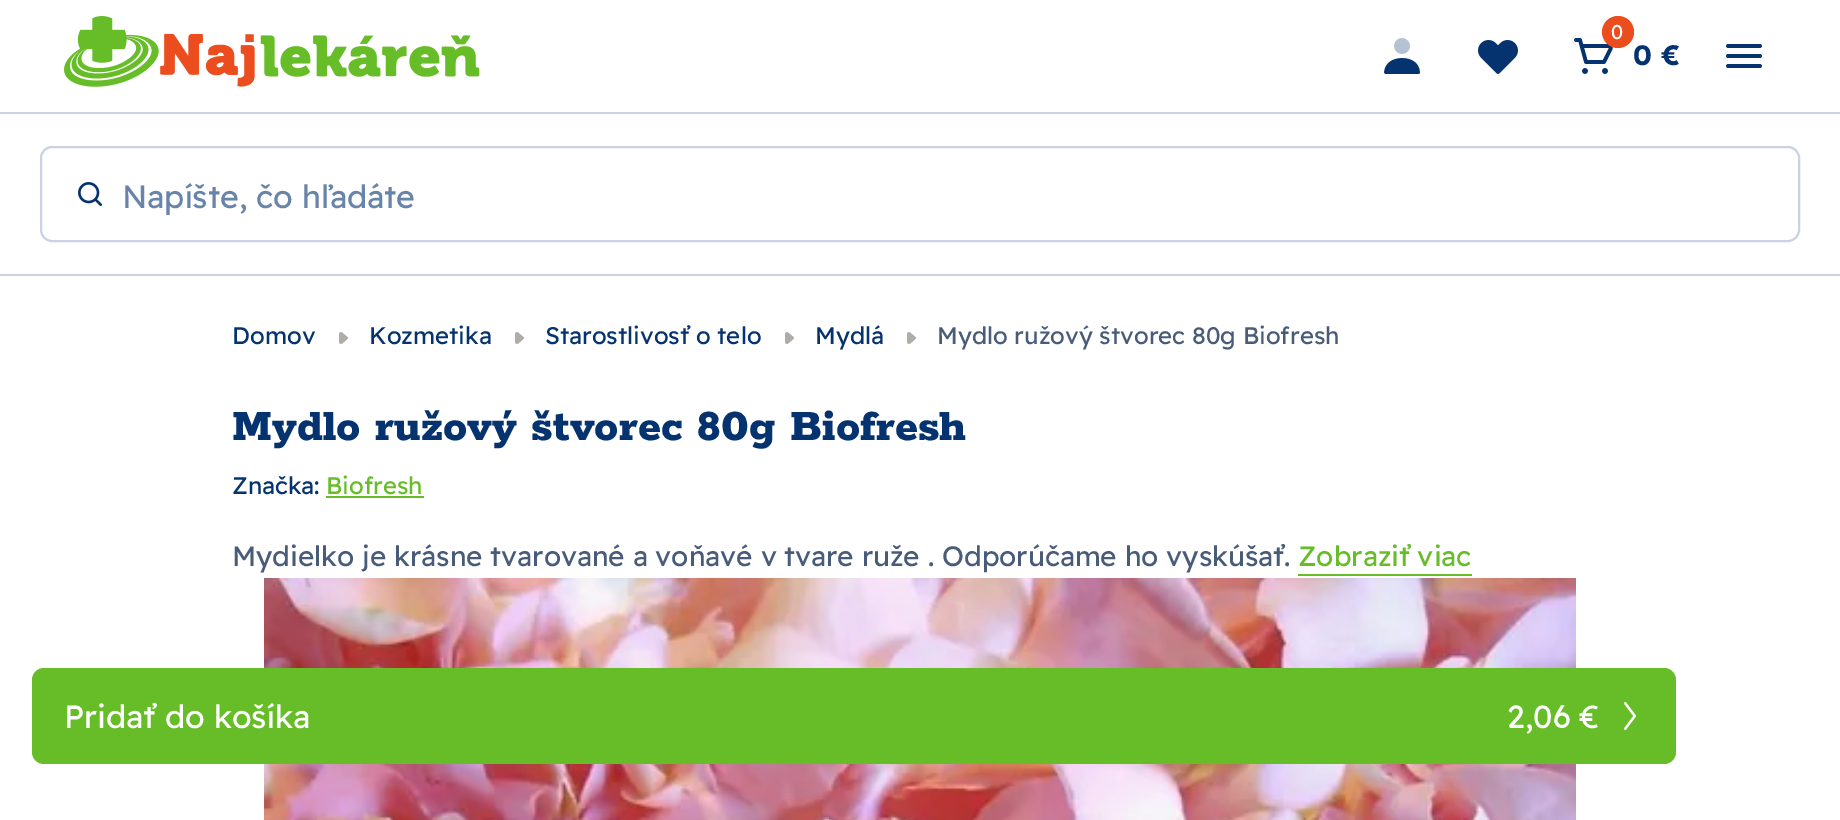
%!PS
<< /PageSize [1840 820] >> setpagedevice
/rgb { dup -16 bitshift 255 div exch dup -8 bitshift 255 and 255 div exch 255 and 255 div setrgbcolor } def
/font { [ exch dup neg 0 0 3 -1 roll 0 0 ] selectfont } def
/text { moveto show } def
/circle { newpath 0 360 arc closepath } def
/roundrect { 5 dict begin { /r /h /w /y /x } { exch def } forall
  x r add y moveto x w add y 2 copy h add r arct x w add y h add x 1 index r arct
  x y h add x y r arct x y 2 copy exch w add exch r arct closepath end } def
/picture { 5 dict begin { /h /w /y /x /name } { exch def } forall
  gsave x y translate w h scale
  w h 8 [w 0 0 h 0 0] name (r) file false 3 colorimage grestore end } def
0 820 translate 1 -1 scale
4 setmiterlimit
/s1 { /ReadexPro-Regular 20 font 16#FFFFFF rgb } def
/s2 { /ReadexPro-Bold 28 font 16#04336F rgb } def
/s3 { /ReadexPro-Regular 32 font 16#6885A9 rgb } def
/s4 { /ReadexPro-Regular 24 font 16#04336F rgb } def
/s5 { /ReadexPro-Regular 24 font 16#485C7A rgb } def
/s6 { /Rokkitt-ExtraBold 48 font 16#04336F rgb } def
/s7 { /ReadexPro-Regular 24 font 16#67BD28 rgb } def
/s8 { /ReadexPro-Regular 28 font 16#485C7A rgb } def
/s9 { /ReadexPro-Regular 28 font 16#67BD28 rgb } def
/s10 { /ReadexPro-Regular 32 font 16#FFFFFF rgb } def
16#FFFFFF rgb
0 0 1840 820 rectfill
16#CCD1E3 rgb
0 112 1840 2 rectfill
(pic1.raw) 64 16 416 71 picture
(pic2.raw) 1384 38 36 36 picture
(pic3.raw) 1478 40 40 34 picture
(pic4.raw) 1574 38 39 36 picture
16#EB4D1E rgb
1618 32 16 circle fill
s1
(0) 1611 39 text
s2
(0 €) 1633 65 text
(pic5.raw) 1726 44 36 24 picture
16#CCD1E3 rgb
0 274 1840 2 rectfill
2 setlinewidth
41 147 1758 94 11 roundrect stroke
(pic6.raw) 78 182 24 24 picture
s3
(Napíšte, čo hľadáte) 122 208 text
s4
(Domov) 232 344 text
(pic7.raw) 339 332 9 12 picture
(Kozmetika) 369 344 text
(pic7.raw) 515 332 9 12 picture
(Starostlivosť o telo) 545 344 text
(pic7.raw) 785 332 9 12 picture
(Mydlá) 815 344 text
(pic7.raw) 907 332 9 12 picture
s5
(Mydlo ružový štvorec 80g Biofresh) 937 344 text
s6
(Mydlo ružový štvorec 80g Biofresh) 232 440 text
s4
(Značka:) 232 494 text
s7
(Biofresh) 326 494 text
326 496 98 2 rectfill
s8
(Mydielko je krásne tvarované a voňavé v tvare ruže . Odporúčame ho vyskúšať.) 232 566 text
s9
(Zobraziť viac) 1298 566 text
1298 574 174 2 rectfill
(pic8.raw) 264 578 1312 242 picture
32 668 1644 96 12 roundrect fill
s10
(Pridať do košíka) 64 728 text
(2,06 €) 1507 728 text
(pic9.raw) 1624 702 12 28 picture
showpage
